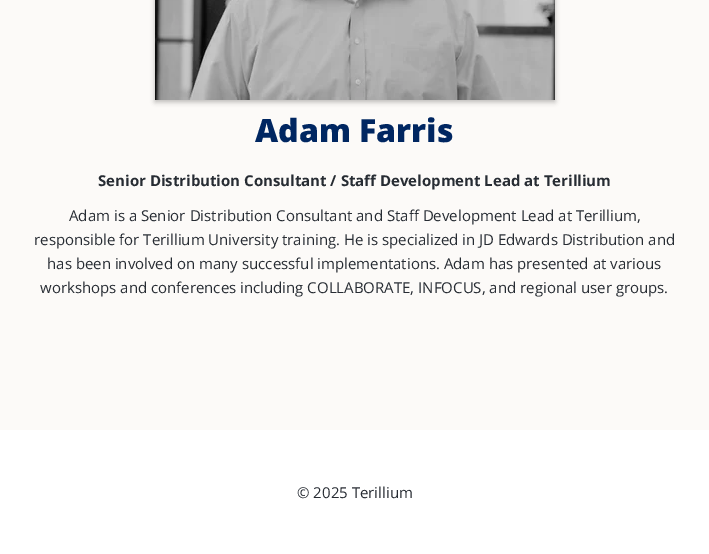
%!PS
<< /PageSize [709 554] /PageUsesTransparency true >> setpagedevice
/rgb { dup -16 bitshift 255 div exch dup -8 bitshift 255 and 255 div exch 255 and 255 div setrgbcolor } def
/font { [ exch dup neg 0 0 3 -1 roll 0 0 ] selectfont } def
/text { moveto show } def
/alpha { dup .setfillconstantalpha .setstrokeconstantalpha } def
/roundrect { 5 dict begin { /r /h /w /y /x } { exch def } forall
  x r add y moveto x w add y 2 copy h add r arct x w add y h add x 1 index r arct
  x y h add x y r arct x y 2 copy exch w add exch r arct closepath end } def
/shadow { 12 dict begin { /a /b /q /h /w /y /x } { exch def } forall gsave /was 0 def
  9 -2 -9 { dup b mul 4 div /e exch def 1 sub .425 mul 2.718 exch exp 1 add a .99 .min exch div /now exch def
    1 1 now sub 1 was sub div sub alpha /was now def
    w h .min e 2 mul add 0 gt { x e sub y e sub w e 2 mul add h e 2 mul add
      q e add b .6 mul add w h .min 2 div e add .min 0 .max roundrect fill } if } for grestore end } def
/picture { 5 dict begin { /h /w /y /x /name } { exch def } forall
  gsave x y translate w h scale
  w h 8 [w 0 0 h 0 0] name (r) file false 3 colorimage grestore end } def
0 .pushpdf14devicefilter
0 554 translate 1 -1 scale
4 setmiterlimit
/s1 { /OpenSans-ExtraBold 32 font 16#002661 rgb } def
/s2 { /OpenSans-Bold 15 font 16#272C33 rgb } def
/s3 { /OpenSans-Regular 15 font 16#272C33 rgb } def
16#FFFFFF rgb
0 0 709 554 rectfill
16#FCFAF8 rgb
0 0 709 430 rectfill
16#000000 rgb
155 -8 400 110 0 2.5 0.26 shadow
(pic1.raw) 155 0 400 100 picture
s1
(Adam Farris) 255 142 text
s2
(Senior Distribution Consultant / Staff Development Lead at Terillium) 98 186 text
s3
(Adam is a Senior Distribution Consultant and Staff Development Lead at Terillium,) 69 221 text
(responsible for Terillium University training. He is specialized in JD Edwards Distribution and) 34 245 text
(has been involved on many successful implementations. Adam has presented at various) 47 269 text
(workshops and conferences including COLLABORATE, INFOCUS, and regional user groups.) 40 293 text
(© 2025 Terillium) 297 498 text
.poppdf14devicefilter showpage
